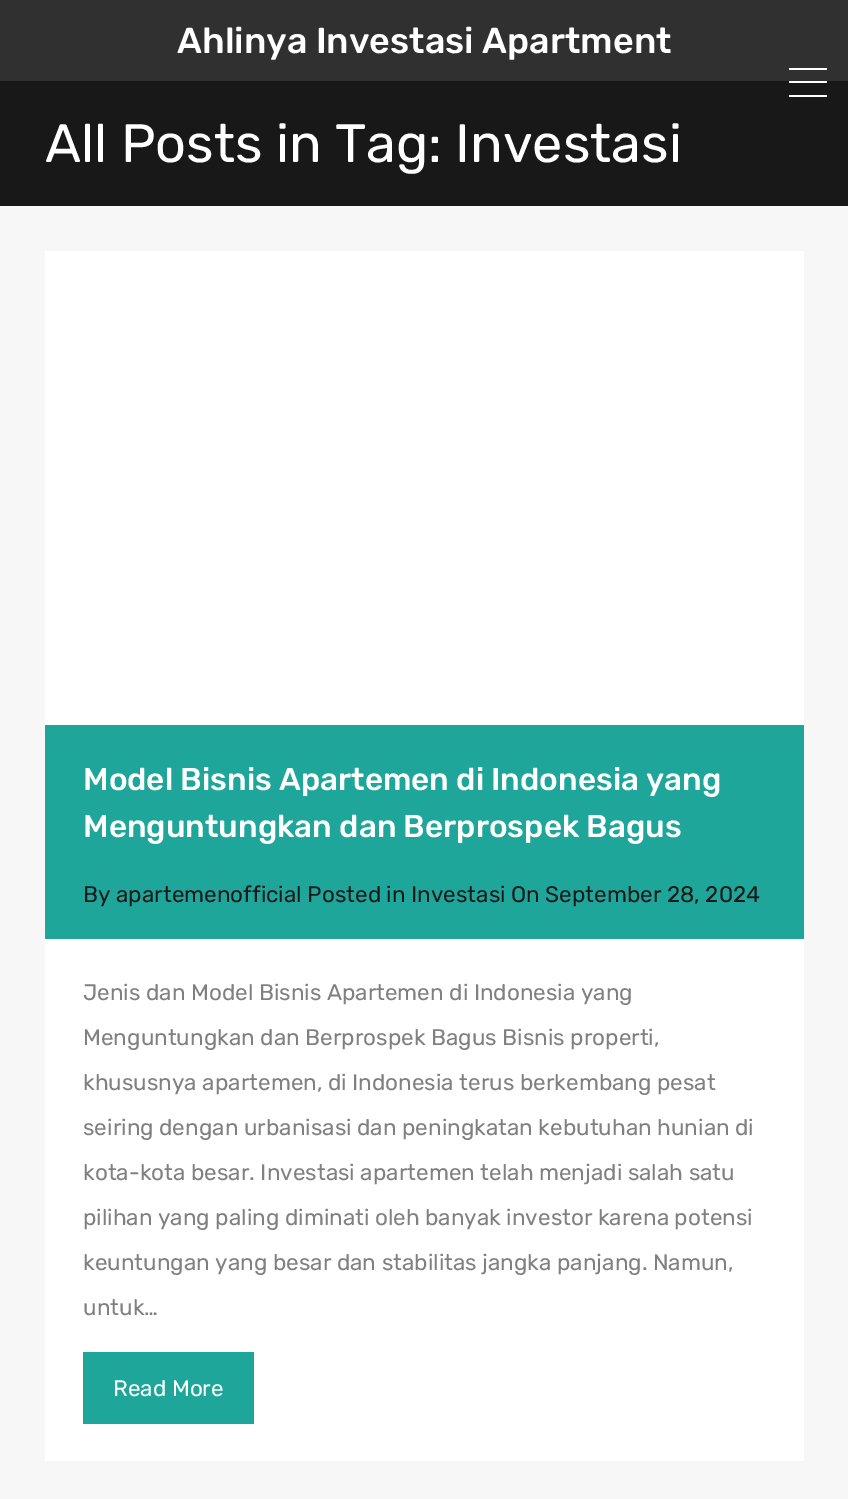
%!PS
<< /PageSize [848 1499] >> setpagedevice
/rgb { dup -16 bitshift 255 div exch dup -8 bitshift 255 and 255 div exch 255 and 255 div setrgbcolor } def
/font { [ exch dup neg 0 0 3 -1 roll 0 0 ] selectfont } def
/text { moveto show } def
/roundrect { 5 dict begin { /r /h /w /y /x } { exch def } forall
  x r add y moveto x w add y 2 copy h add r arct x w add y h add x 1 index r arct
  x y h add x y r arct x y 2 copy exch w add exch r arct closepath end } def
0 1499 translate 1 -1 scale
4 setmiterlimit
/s1 { /Rubik-Medium 36 font 16#FFFFFF rgb } def
/s2 { /Rubik-Regular 54 font 16#FFFFFF rgb } def
/s3 { /Rubik-Medium 31.5 font 16#FFFFFF rgb } def
/s4 { /Rubik-Regular 22.5 font 16#1A1A1A rgb } def
/s5 { /Rubik-Regular 22.5 font 16#808080 rgb } def
/s6 { /Rubik-Regular 22.5 font 16#FFFFFF rgb } def
16#F7F7F7 rgb
0 0 848 1499 rectfill
16#303030 rgb
0 0 848 81 rectfill
s1
(Ahlinya Investasi Apartment) 177 53 text
16#181818 rgb
0 81 848 125 rectfill
16#FFFFFF rgb
789 81 38 2 1 roundrect fill
789 68 38 2 1 roundrect fill
789 95 38 2 1 roundrect fill
s2
(All Posts in Tag: Investasi) 45 162 text
45 251 759 1210 rectfill
16#1EA69A rgb
45 725 759 214 rectfill
s3
(Model Bisnis Apartemen di Indonesia yang) 83 790 text
(Menguntungkan dan Berprospek Bagus) 83 837 text
s4
(By apartemenofficial Posted in Investasi On September 28, 2024) 83 902 text
s5
(Jenis dan Model Bisnis Apartemen di Indonesia yang) 83 1000 text
(Menguntungkan dan Berprospek Bagus Bisnis properti,) 83 1045 text
(khususnya apartemen, di Indonesia terus berkembang pesat) 83 1090 text
(seiring dengan urbanisasi dan peningkatan kebutuhan hunian di) 83 1135 text
(kota-kota besar. Investasi apartemen telah menjadi salah satu) 83 1180 text
(pilihan yang paling diminati oleh banyak investor karena potensi) 83 1225 text
(keuntungan yang besar dan stabilitas jangka panjang. Namun,) 83 1270 text
(untuk…) 83 1315 text
16#1EA69A rgb
83 1352 171 72 rectfill
s6
(Read More) 113 1396 text
showpage
